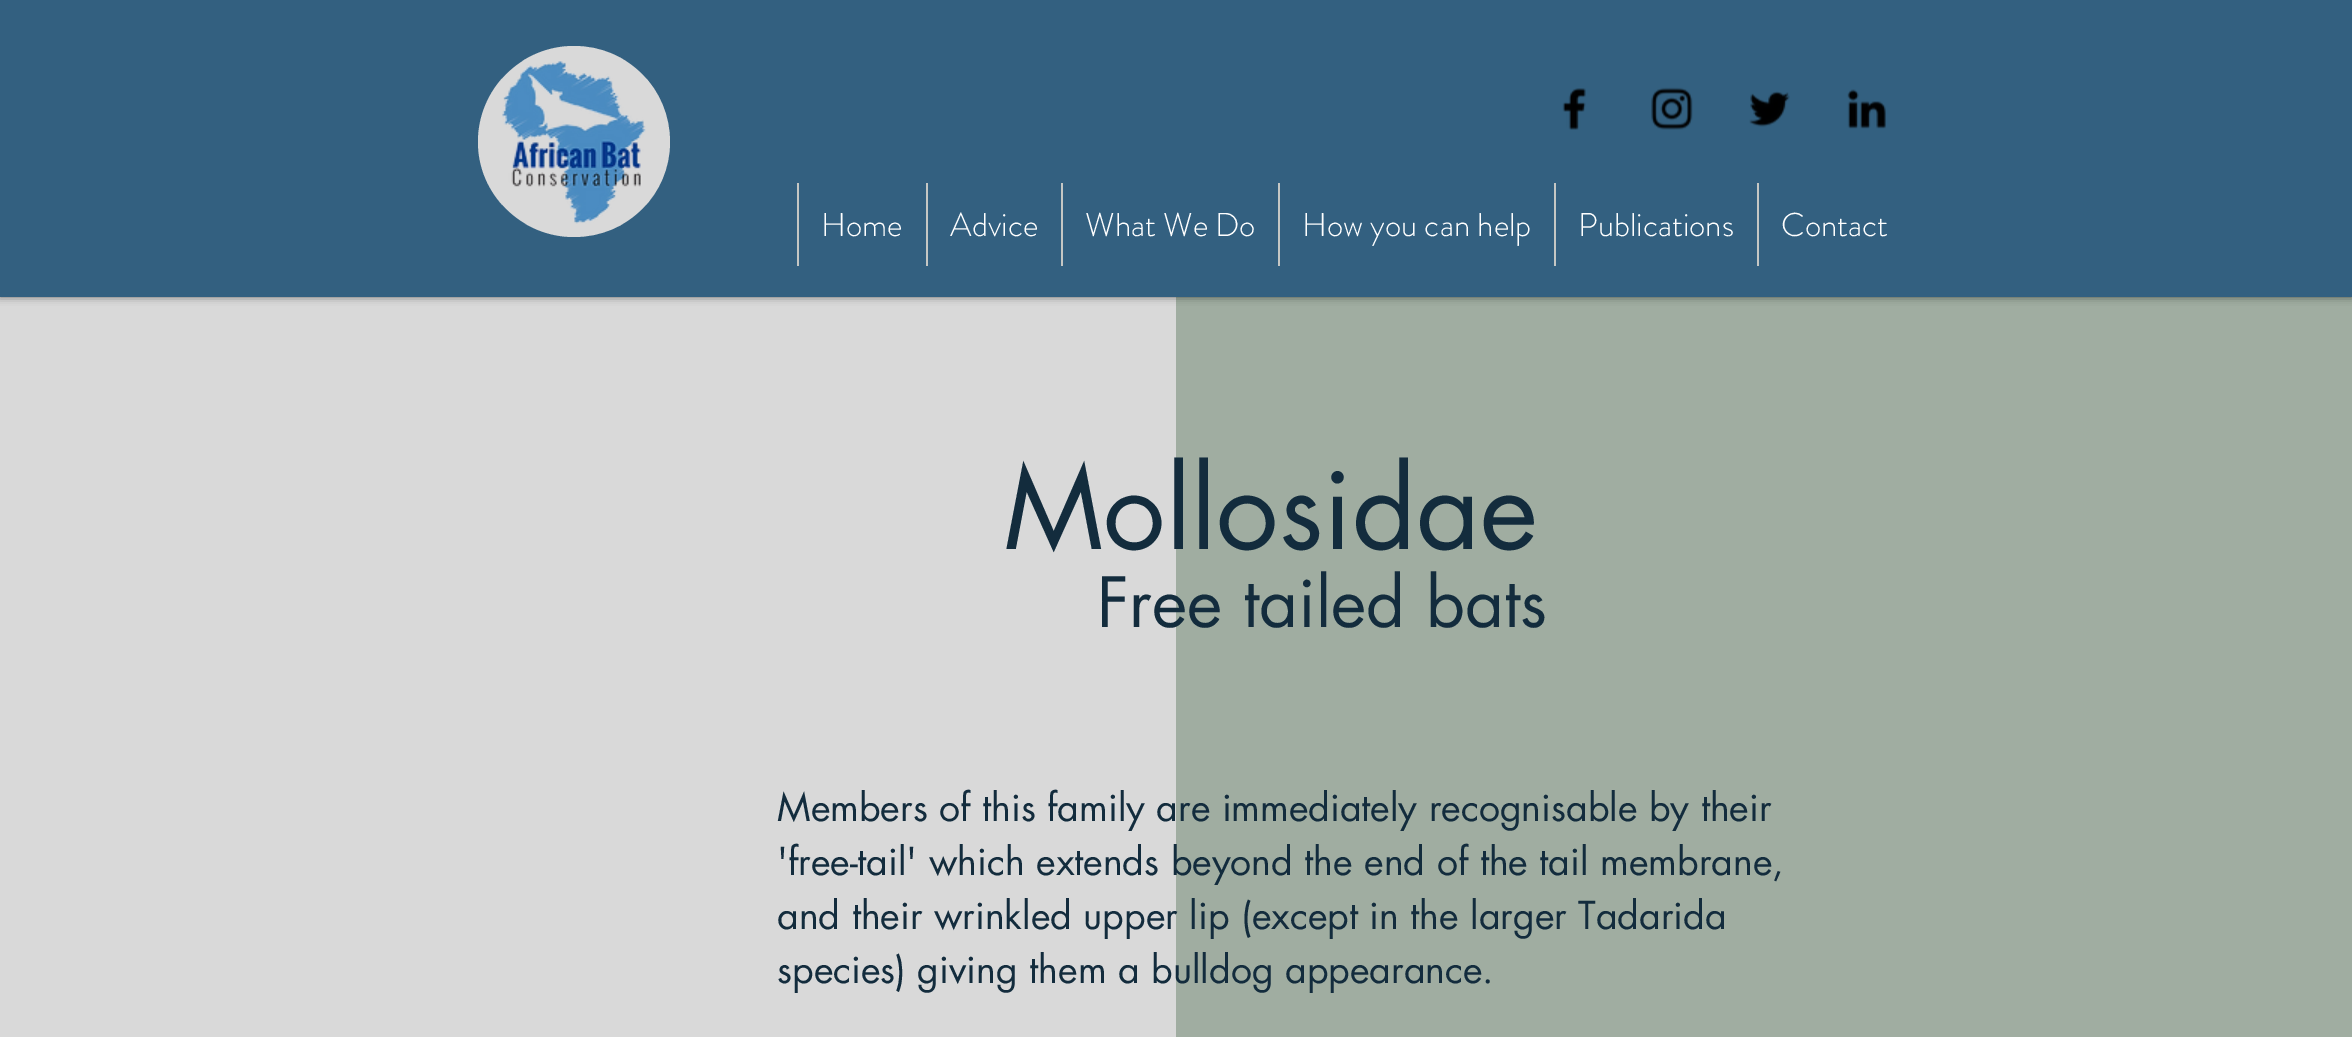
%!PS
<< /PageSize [2352 1037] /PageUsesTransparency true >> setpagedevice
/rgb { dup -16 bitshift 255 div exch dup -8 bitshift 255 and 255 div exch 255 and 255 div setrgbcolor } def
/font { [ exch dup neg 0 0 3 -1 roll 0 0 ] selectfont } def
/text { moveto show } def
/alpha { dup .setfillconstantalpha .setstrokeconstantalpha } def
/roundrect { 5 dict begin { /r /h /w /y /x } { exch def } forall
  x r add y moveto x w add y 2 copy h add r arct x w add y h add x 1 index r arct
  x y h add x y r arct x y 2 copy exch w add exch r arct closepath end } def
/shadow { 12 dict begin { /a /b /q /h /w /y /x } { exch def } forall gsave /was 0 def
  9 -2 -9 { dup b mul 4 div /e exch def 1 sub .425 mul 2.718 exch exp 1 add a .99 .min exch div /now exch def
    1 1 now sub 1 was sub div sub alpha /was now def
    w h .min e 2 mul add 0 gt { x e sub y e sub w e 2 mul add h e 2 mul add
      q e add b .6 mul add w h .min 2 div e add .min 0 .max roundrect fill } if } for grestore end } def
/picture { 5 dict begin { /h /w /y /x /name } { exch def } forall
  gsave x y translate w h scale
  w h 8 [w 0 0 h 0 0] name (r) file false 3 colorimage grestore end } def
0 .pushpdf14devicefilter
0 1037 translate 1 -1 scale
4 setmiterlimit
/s1 { /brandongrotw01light-Light 33 font 16#FFFFFF rgb } def
/s2 { /futura-Regular 111 font 16#132C3D rgb } def
/s3 { /futura-Regular 67.5 font 16#132C3D rgb } def
/s4 { /futura-Regular 37.5 font 16#132C3D rgb } def
16#D9D9D9 rgb
0 0 2352 1037 rectfill
16#A0ADA1 rgb
1176 297 1176 740 rectfill
16#000000 rgb
0 0 2352 297 0 4 0.5 shadow
16#336080 rgb
0 0 2352 297 rectfill
16#D9D9D9 rgb
670 142 moveto 670 194 628 237 574 237 curveto 521 237 478 194 478 142 curveto 478 89 521 46 574 46 curveto 628 46 670 89 670 142 curveto closepath fill
(pic1.raw) 502 61 144 163 picture
(pic2.raw) 1562 88 24 42 picture
(pic3.raw) 1651 87 42 43 picture
(pic4.raw) 1749 91 41 36 picture
(pic5.raw) 1847 89 39 40 picture
16#C5C7C4 rgb
797 183 2 83 rectfill
s1
(Home) 821 236 text
16#C5C7C4 rgb
926 183 2 83 rectfill
s1
(Advice) 950 236 text
16#C5C7C4 rgb
1061 183 2 83 rectfill
s1
(What We Do) 1085 236 text
16#C5C7C4 rgb
1278 183 2 83 rectfill
s1
(How you can help) 1302 236 text
16#C5C7C4 rgb
1554 183 2 83 rectfill
s1
(Publications) 1578 236 text
16#C5C7C4 rgb
1757 183 2 83 rectfill
s1
(Contact) 1781 236 text
s2
(Mollosidae) 1004 549 text
s3
(Free tailed bats) 1097 627 text
s4
(Members of this family are immediately recognisable by their) 777 821 text
('free-tail' which extends beyond the end of the tail membrane,) 777 875 text
(and their wrinkled upper lip \(except in the larger Tadarida) 777 929 text
(species\) giving them a bulldog appearance.) 777 983 text
.poppdf14devicefilter showpage
